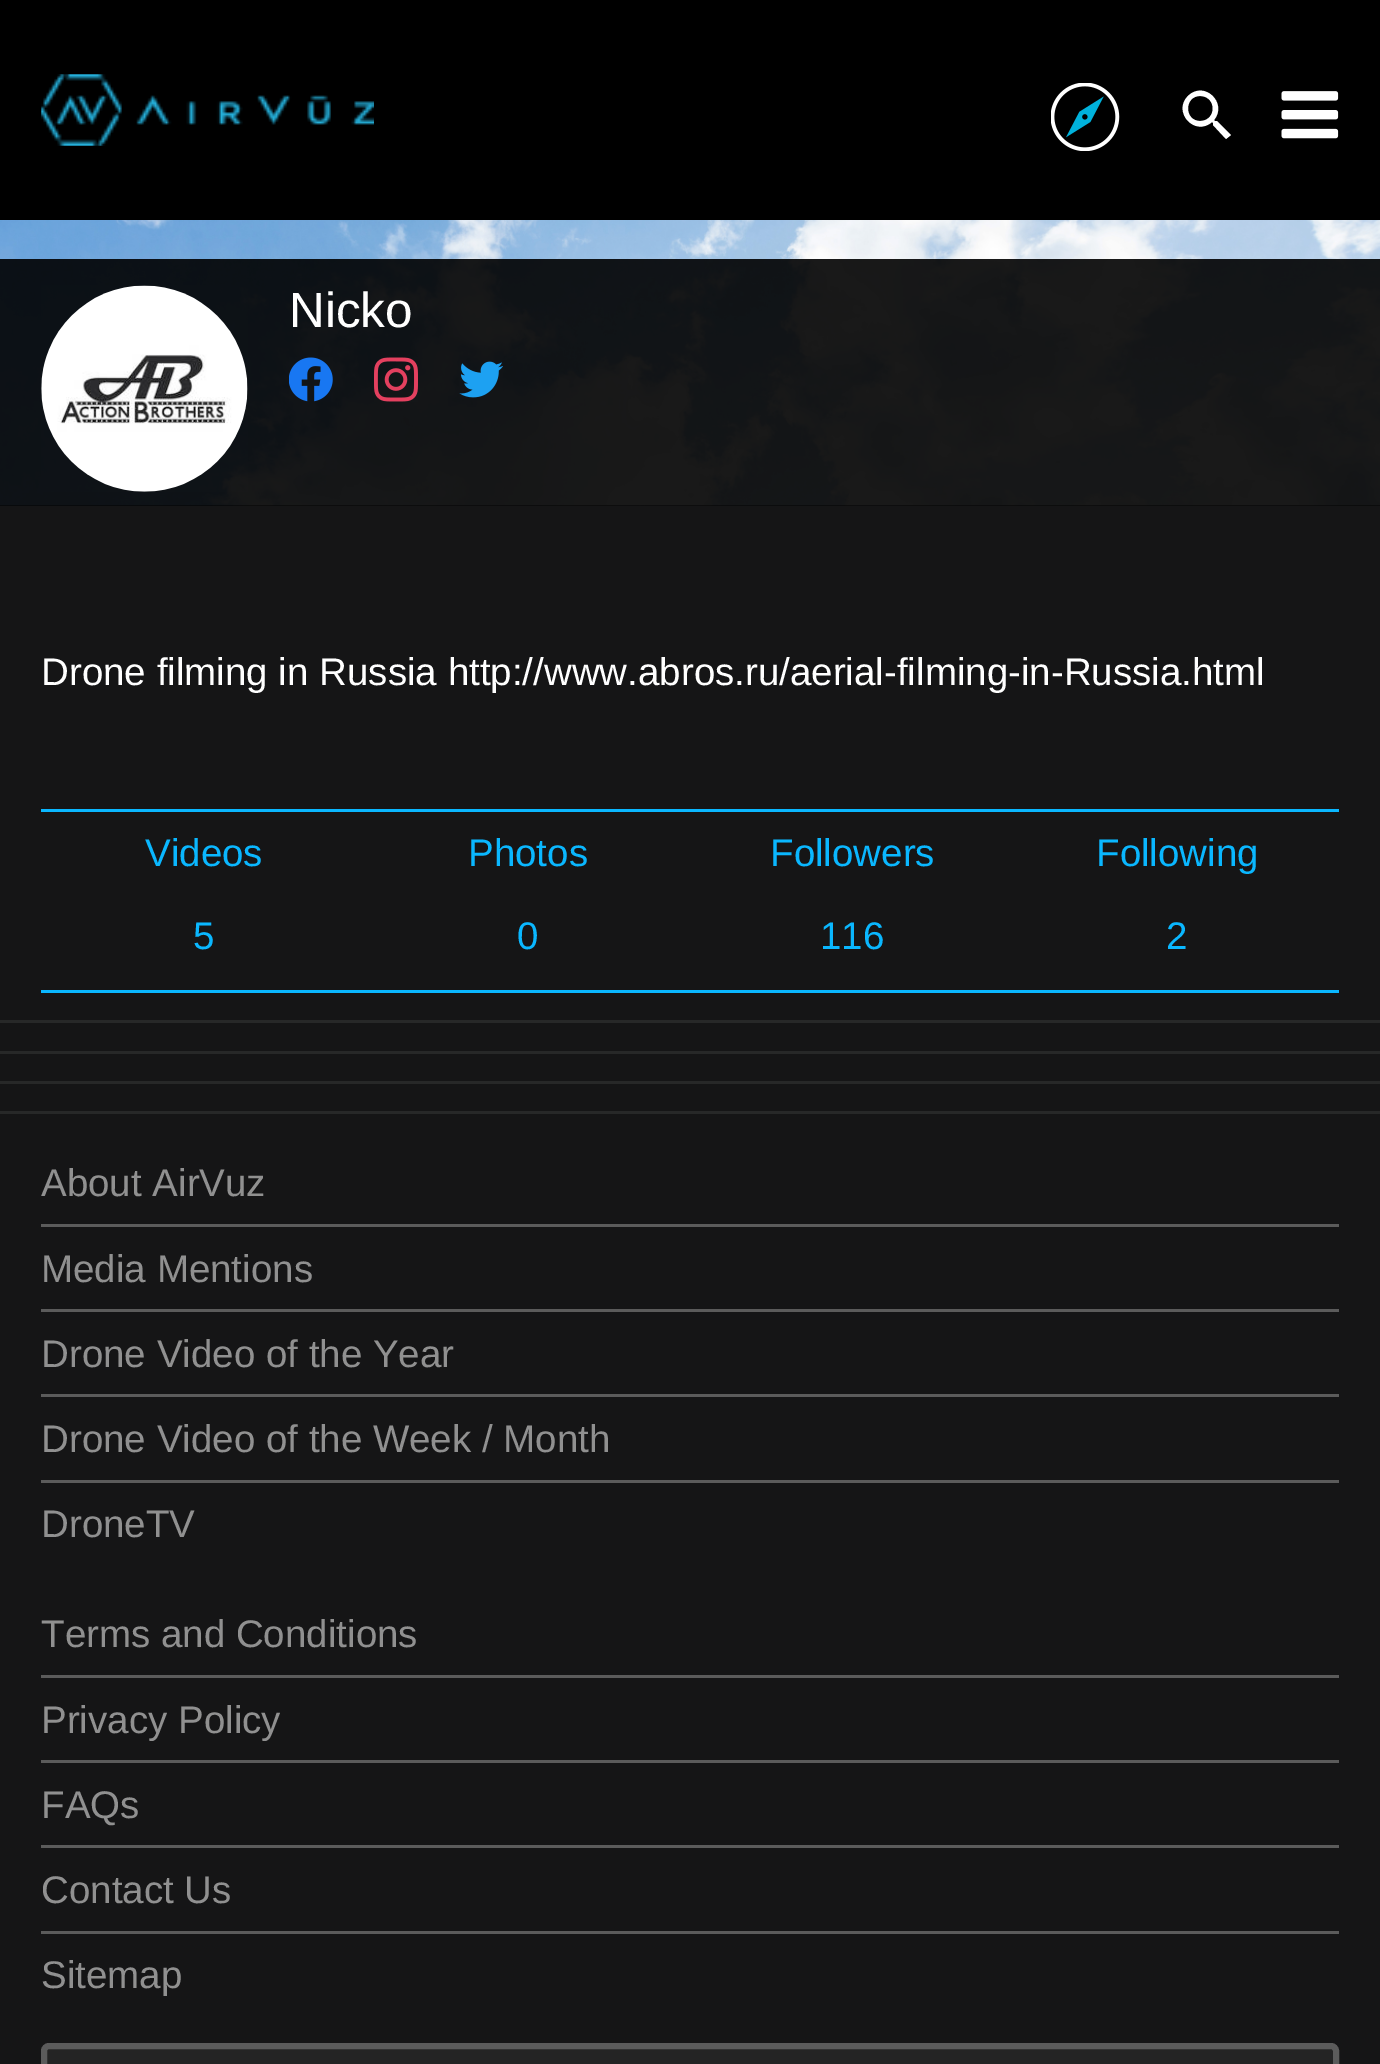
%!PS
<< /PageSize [1380 2064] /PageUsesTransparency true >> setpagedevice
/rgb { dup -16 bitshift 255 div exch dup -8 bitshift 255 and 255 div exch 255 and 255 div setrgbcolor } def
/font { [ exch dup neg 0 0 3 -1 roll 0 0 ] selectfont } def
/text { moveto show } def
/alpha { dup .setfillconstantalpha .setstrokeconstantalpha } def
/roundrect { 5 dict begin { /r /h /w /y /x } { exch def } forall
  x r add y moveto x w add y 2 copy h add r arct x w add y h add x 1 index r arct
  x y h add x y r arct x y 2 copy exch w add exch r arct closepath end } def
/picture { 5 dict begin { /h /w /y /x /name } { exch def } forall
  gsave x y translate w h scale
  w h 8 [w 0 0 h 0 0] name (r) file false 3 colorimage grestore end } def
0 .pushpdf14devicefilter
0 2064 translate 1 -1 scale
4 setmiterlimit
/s1 { /LiberationSans-Regular 49.5 font 16#FFFFFF rgb } def
/s2 { /LiberationSans-Regular 38.5 font 16#FFFFFF rgb } def
/s3 { /LiberationSans-Regular 38.5 font 16#0AB7FF rgb } def
/s4 { /LiberationSans-Regular 38.5 font 16#909090 rgb } def
16#151516 rgb
0 0 1380 2064 rectfill
16#000000 rgb
0 0 1380 220 rectfill
(pic1.raw) 41 74 333 72 picture
(pic2.raw) 1051 83 69 68 picture
16#FFFFFF rgb
1200 121 moveto 1217 121 1217 96 1200 96 curveto 1184 96 1184 121 1200 121 curveto closepath 1217 121 moveto 1231 135 lineto 1226 139 lineto 1213 125 lineto 1213 123 lineto 1212 122 lineto 1195 137 1172 112 1188 96 curveto 1204 80 1228 103 1214 120 curveto 1215 121 lineto closepath fill
(pic3.raw) 1281 91 58 48 picture
(pic4.raw) 0 220 1380 286 picture
0.9 alpha
16#000000 rgb
0 259 1380 247 rectfill
1 alpha
(pic5.raw) 41 285 207 207 picture
s1
(Nicko) 289 327 text
(pic6.raw) 289 357 44 45 picture
(pic7.raw) 374 357 44 45 picture
(pic8.raw) 459 361 44 37 picture
s2
(Drone filming in Russia http://www.abros.ru/aerial-filming-in-Russia.html) 41 685 text
16#0AB7FF rgb
41 809 1298 3 rectfill
41 990 1298 3 rectfill
(Videos) 145 866 text
(5) 193 949 text
(Photos) 468 866 text
(0) 517 949 text
(Followers) 770 866 text
(116) 820 949 text
(Following) 1096 866 text
(2) 1166 949 text
16#272828 rgb
0 1020 1380 3 rectfill
0 1051 1380 3 rectfill
0 1081 1380 3 rectfill
0 1111 1380 3 rectfill
16#5B5B5B rgb
41 1224 1298 3 rectfill
s4
(About AirVuz) 41 1196 text
16#5B5B5B rgb
41 1309 1298 3 rectfill
s4
(Media Mentions) 41 1282 text
16#5B5B5B rgb
41 1394 1298 3 rectfill
s4
(Drone Video of the Year) 41 1367 text
16#5B5B5B rgb
41 1480 1298 3 rectfill
s4
(Drone Video of the Week / Month) 41 1452 text
(DroneTV) 41 1537 text
16#5B5B5B rgb
41 1675 1298 3 rectfill
s4
(Terms and Conditions) 41 1647 text
16#5B5B5B rgb
41 1760 1298 3 rectfill
s4
(Privacy Policy) 41 1733 text
16#5B5B5B rgb
41 1845 1298 3 rectfill
s4
(FAQs) 41 1818 text
16#5B5B5B rgb
41 1931 1298 3 rectfill
s4
(Contact Us) 41 1903 text
(Sitemap) 41 1988 text
16#242424 rgb
44 2046 1292 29 5 roundrect gsave fill grestore
16#5B5B5B rgb
6 setlinewidth
stroke
.poppdf14devicefilter showpage
